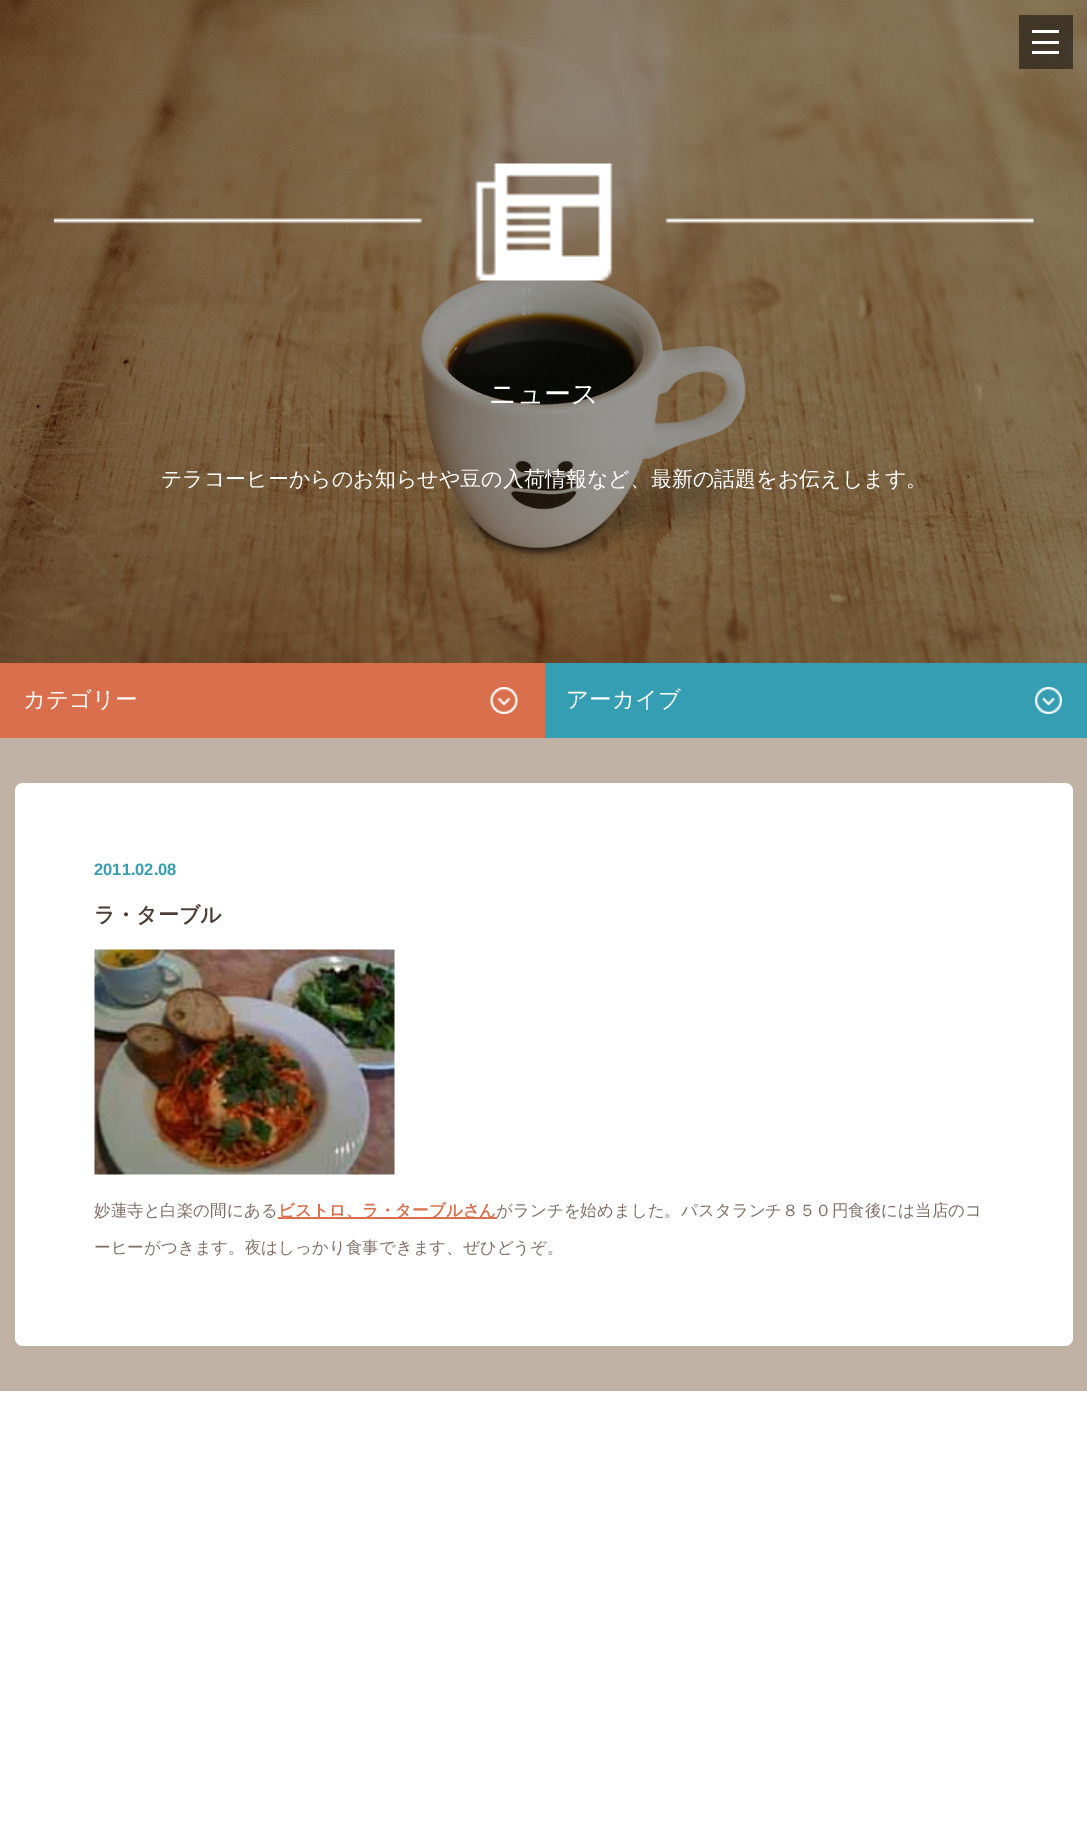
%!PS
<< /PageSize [1087 1843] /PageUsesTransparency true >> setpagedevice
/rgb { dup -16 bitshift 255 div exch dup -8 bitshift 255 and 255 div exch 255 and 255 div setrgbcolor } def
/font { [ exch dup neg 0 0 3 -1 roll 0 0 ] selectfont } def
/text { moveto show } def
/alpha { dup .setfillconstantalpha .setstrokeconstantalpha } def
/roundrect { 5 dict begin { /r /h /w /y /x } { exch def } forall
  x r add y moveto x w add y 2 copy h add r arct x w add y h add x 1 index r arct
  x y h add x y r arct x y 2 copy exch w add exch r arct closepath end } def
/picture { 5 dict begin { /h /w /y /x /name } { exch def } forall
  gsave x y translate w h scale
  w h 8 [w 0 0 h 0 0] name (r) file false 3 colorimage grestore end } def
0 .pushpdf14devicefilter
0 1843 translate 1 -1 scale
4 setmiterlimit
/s1 { /WenQuanYiZenHei-Medium 27 font 16#FFFFFF rgb } def
/s2 { /WenQuanYiZenHei-Medium 21 font 16#FFFFFF rgb } def
/s3 { /WenQuanYiZenHei-Medium 22.5 font 16#FFFFFF rgb } def
/s4 { /LiberationSans-Bold 16.5 font 16#369EB3 rgb } def
/s5 { /WenQuanYiZenHei-Bold 21 font 16#4C3D36 rgb } def
/s6 { /WenQuanYiZenHei-Medium 16.5 font 16#806E66 rgb } def
/s7 { /WenQuanYiZenHei-Bold 16.5 font 16#D96F4C rgb } def
16#FFFFFF rgb
0 0 1087 1843 rectfill
16#BFB1A3 rgb
0 738 1087 653 rectfill
(pic1.raw) 0 0 1087 663 picture
0.5 alpha
16#000000 rgb
1019 15 54 54 rectfill
1 alpha
16#FFFFFF rgb
1032 30 27 3 rectfill
1032 41 27 3 rectfill
1032 51 27 3 rectfill
(pic2.raw) 54 163 980 118 picture
s1
(ニュース) 489 403 text
s2
(テラコーヒーからのお知らせや豆の入荷情報など、最新の話題をお伝えします。) 161 486 text
16#D96F4C rgb
0 663 545 75 rectfill
(pic3.raw) 490 687 28 27 picture
s3
(カテゴリー) 23 707 text
16#369EB3 rgb
545 663 542 75 rectfill
(pic4.raw) 1035 687 27 27 picture
s3
(アーカイブ) 566 707 text
15 783 1058 563 8 roundrect fill
s4
(2011.02.08) 94 875 text
s5
(ラ・ターブル) 94 922 text
(pic5.raw) 94 949 301 226 picture
s6
(妙蓮寺と白楽の間にある) 94 1216 text
16#D96F4C rgb
278 1217 219 2 rectfill
s7
(ビストロ、ラ・ターブルさん) 278 1216 text
s6
(がランチを始めました。パスタランチ８５０円食後には当店のコ) 496 1216 text
(ーヒーがつきます。夜はしっかり食事できます、ぜひどうぞ。) 94 1253 text
.poppdf14devicefilter showpage
